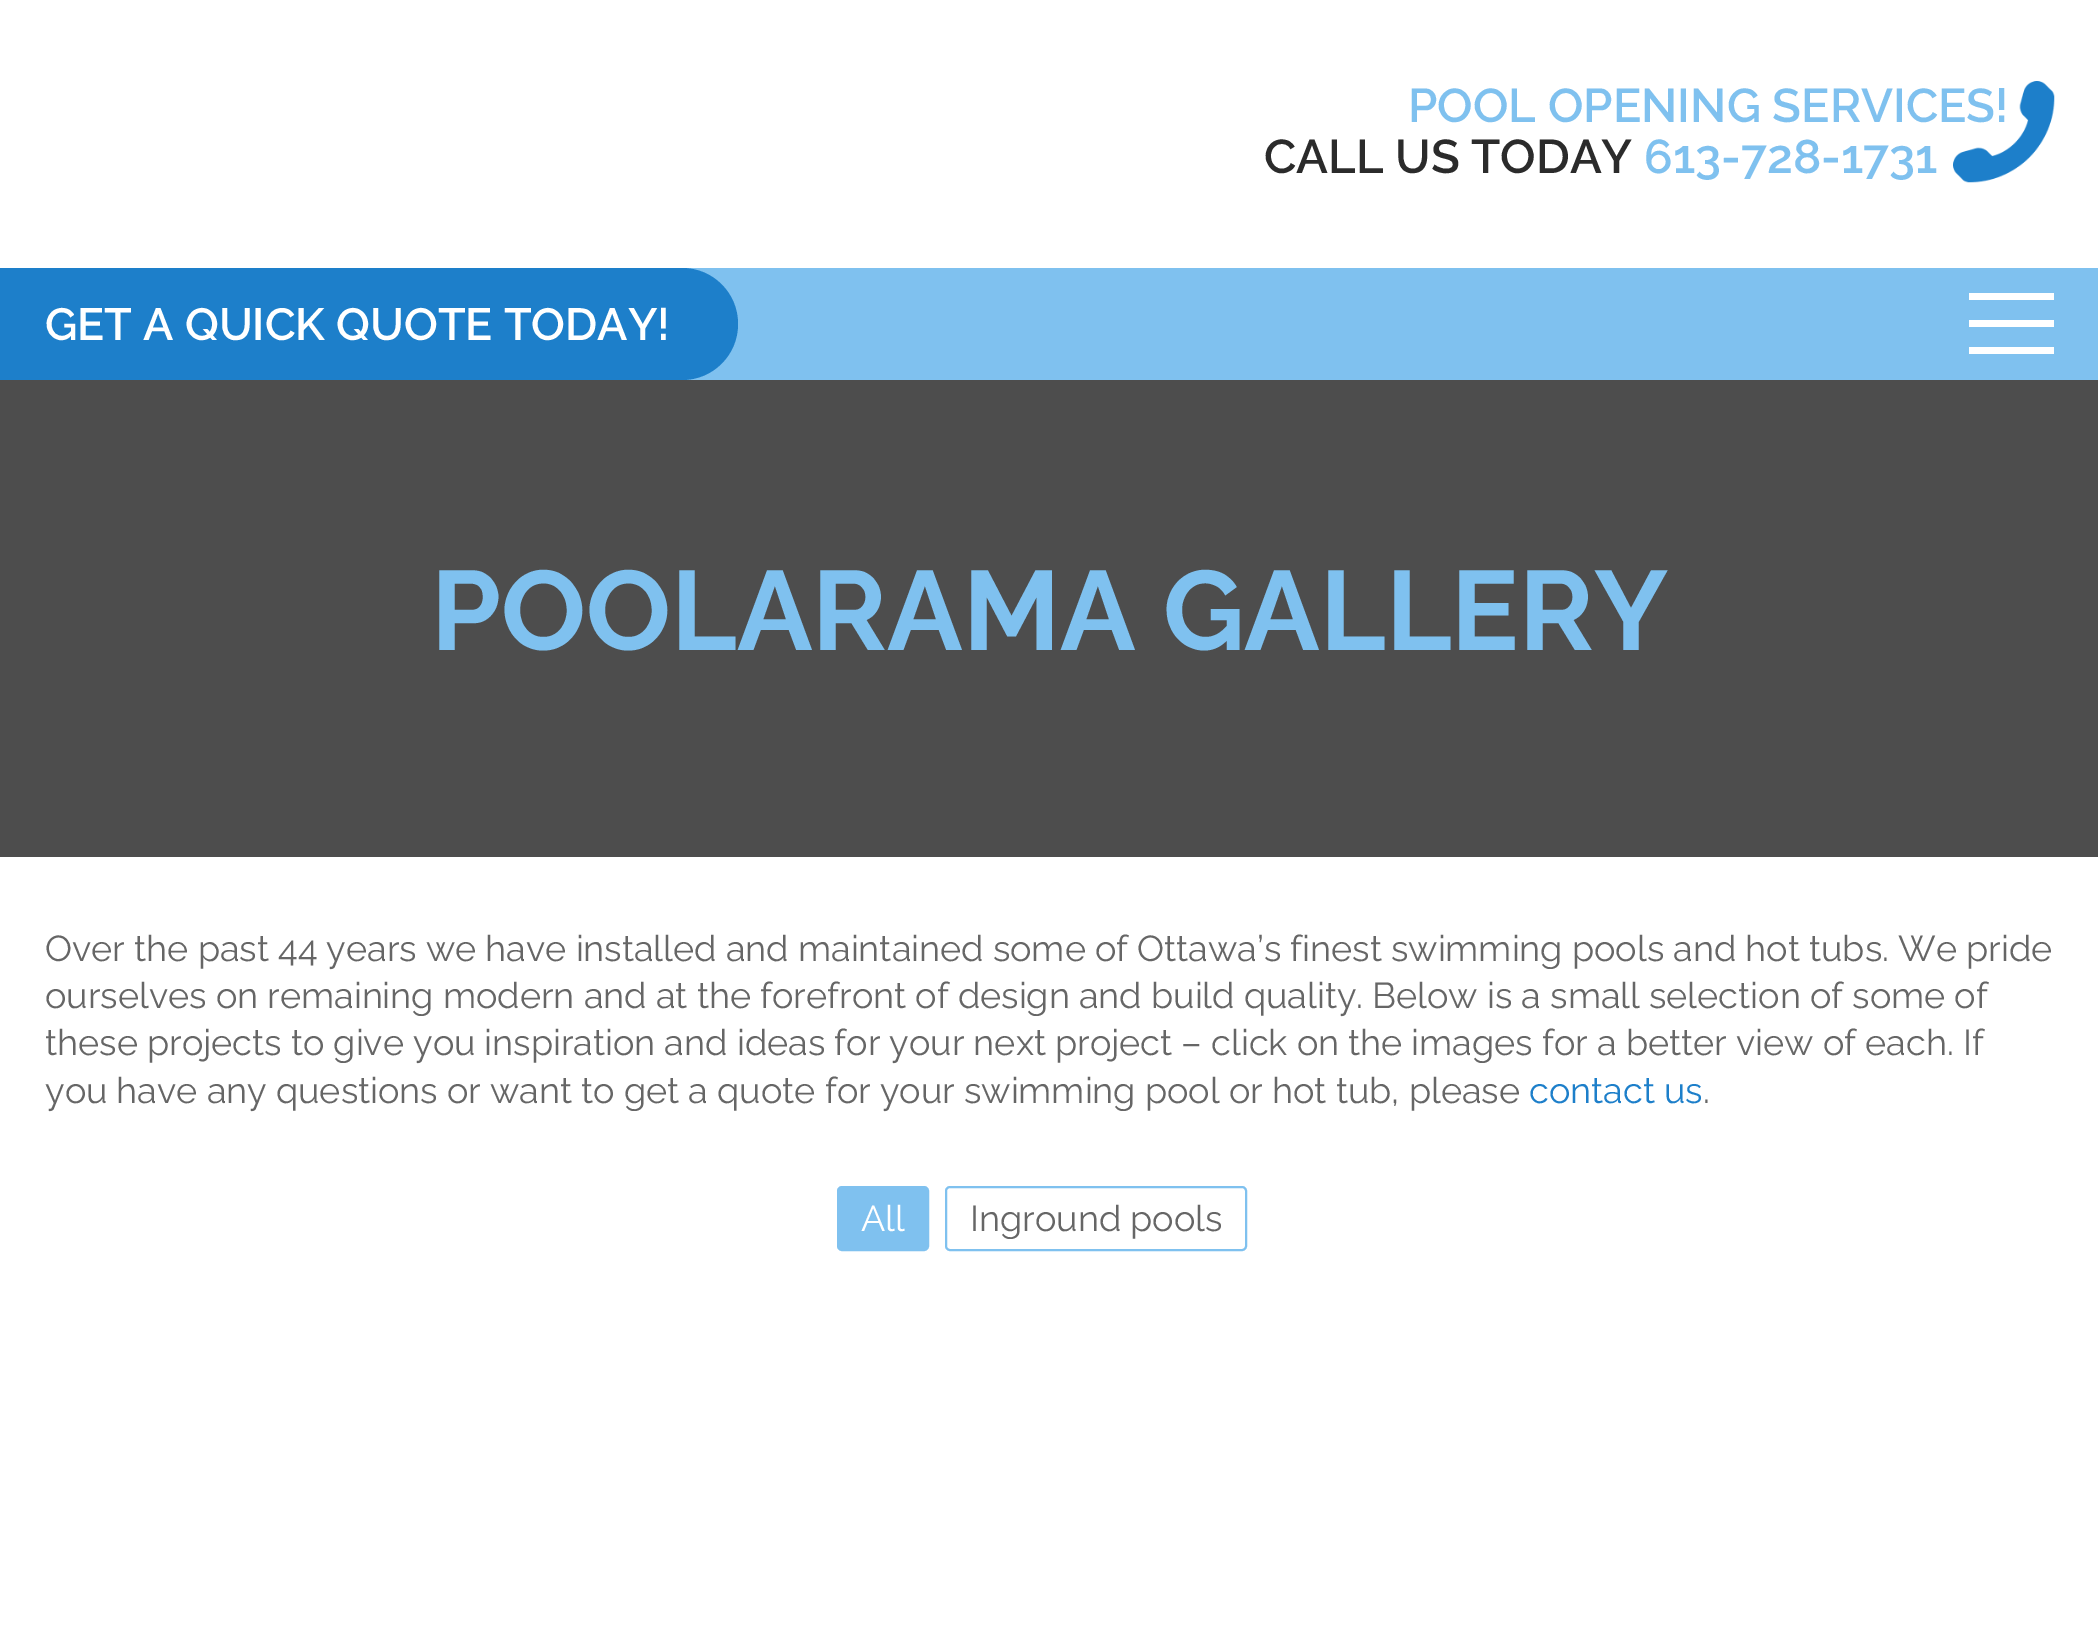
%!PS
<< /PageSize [2098 1632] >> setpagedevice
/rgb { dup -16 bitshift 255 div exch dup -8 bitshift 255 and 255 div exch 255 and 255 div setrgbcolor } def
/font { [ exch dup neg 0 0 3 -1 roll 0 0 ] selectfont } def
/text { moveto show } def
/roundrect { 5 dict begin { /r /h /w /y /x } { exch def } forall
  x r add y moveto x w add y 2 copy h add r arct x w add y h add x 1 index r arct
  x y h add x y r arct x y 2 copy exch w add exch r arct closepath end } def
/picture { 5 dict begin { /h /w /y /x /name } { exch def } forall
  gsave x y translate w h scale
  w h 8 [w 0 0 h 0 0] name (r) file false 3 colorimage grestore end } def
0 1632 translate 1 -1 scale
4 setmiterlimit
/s1 { /Raleway-SemiBold 47.25 font 16#7FC1EF rgb } def
/s2 { /Raleway-SemiBold 47.25 font 16#2B2B2B rgb } def
/s3 { /Raleway-SemiBold 45 font 16#FFFFFF rgb } def
/s4 { /Raleway-Bold 112.5 font 16#7FC1EF rgb } def
/s5 { /Raleway-Regular 36 font 16#666666 rgb } def
/s6 { /Raleway-Regular 36 font 16#1D7FCA rgb } def
/s7 { /Raleway-Regular 36 font 16#FFFFFF rgb } def
16#FFFFFF rgb
0 0 2098 1632 rectfill
(pic1.raw) 1953 81 102 102 picture
s1
(POOL OPENING SERVICES!) 1408 122 text
s2
(CALL US TODAY) 1264 173 text
s1
(613-728-1731) 1644 173 text
682 268 1416 112 rectfill
16#1D7FCA rgb
0 268 moveto 682 268 lineto 713 268 738 293 738 324 curveto 738 355 713 380 682 380 curveto 0 380 lineto closepath fill
s3
(GET A QUICK QUOTE TODAY!) 45 340 text
1969 293 85 7 rectfill
1969 320 85 7 rectfill
1969 347 85 7 rectfill
16#4D4D4D rgb
0 380 2098 477 rectfill
s4
(POOLARAMA GALLERY) 431 650 text
s5
(Over the past 44 years we have installed and maintained some of Ottawa’s finest swimming pools and hot tubs. We pride) 45 961 text
(ourselves on remaining modern and at the forefront of design and build quality. Below is a small selection of some of) 45 1008 text
(these projects to give you inspiration and ideas for your next project – click on the images for a better view of each. If) 45 1055 text
(you have any questions or want to get a quote for your swimming pool or hot tub, please) 45 1103 text
s6
(contact us) 1529 1103 text
s5
(.) 1703 1103 text
16#7FC1EF rgb
838 1187 90 63 4 roundrect gsave fill grestore
2 setlinewidth
stroke
s7
(All) 861 1231 text
16#7FC1EF rgb
946 1187 300 63 4 roundrect stroke
s5
(Inground pools) 970 1231 text
showpage
